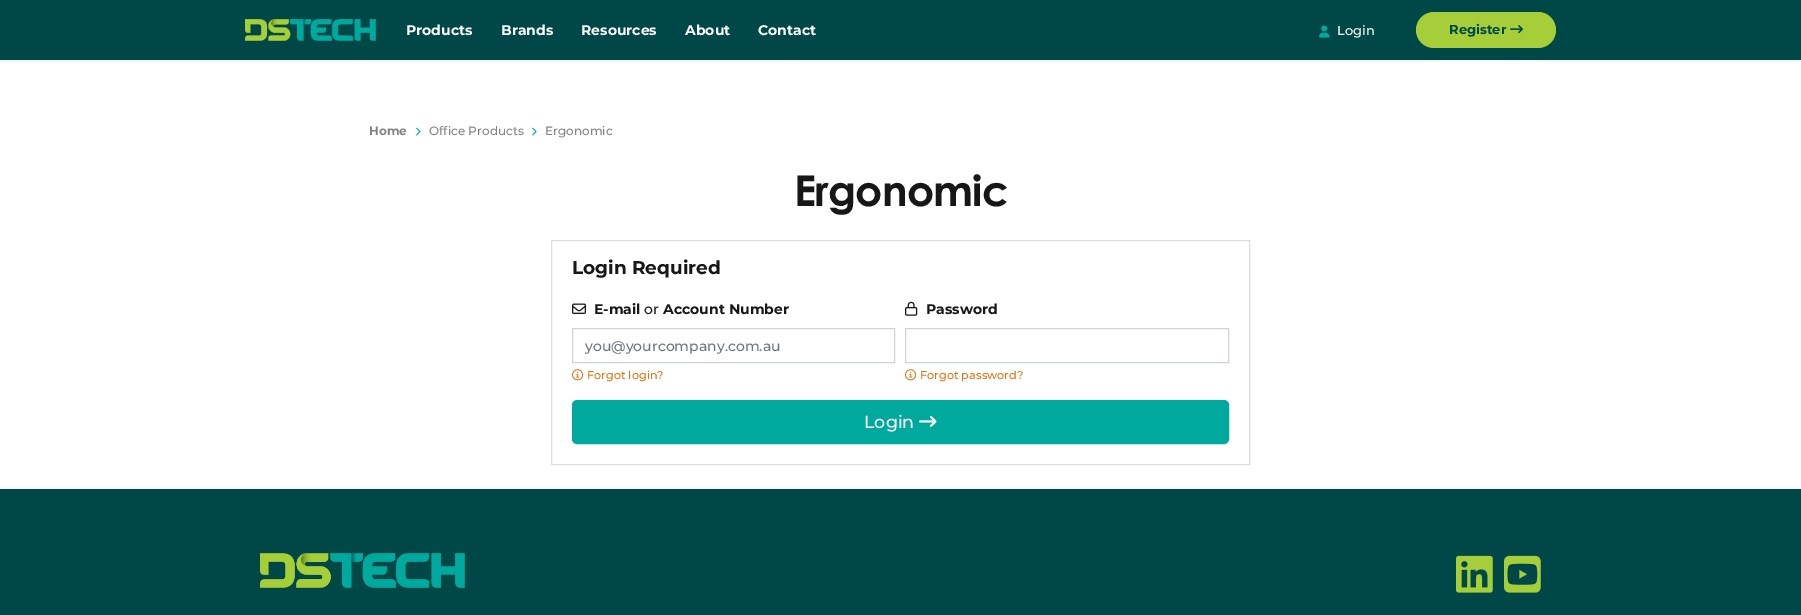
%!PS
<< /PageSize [1801 615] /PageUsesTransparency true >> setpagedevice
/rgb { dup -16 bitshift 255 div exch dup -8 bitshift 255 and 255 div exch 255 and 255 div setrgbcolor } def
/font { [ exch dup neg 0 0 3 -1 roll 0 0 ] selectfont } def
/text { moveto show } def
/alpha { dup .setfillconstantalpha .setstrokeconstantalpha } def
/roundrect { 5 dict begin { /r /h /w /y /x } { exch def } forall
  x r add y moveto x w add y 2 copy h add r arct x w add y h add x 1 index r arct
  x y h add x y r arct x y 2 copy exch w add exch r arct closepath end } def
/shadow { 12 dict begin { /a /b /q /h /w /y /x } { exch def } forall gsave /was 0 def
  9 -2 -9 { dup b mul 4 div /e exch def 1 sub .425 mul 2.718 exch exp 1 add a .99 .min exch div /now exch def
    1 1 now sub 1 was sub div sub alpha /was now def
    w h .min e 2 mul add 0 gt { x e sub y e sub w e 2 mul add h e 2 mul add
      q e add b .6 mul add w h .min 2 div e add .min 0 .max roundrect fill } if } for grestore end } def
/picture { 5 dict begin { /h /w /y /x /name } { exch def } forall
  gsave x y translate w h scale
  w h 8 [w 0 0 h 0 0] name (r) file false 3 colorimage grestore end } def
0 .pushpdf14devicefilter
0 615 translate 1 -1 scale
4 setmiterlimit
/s1 { /Montserrat-Bold 14 font 16#FFFFFF rgb } def
/s2 { /Montserrat-Medium 13 font 16#FFFFFF rgb } def
/s3 { /Montserrat-Bold 13 font 16#004848 rgb } def
/s4 { /Montserrat-Bold 12 font 16#838383 rgb } def
/s5 { /Montserrat-Medium 12 font 16#838383 rgb } def
/s6 { /Montserrat-Bold 18.5 font 16#171717 rgb } def
/s7 { /Montserrat-Bold 14 font 16#171717 rgb } def
/s8 { /Montserrat-Medium 14 font 16#171717 rgb } def
/s9 { /Montserrat-Medium 14 font 16#6C757D rgb } def
/s10 { /Montserrat-Medium 11.25 font 16#E5700C rgb } def
/s11 { /Montserrat-Medium 17.5 font 16#FFFFFF rgb } def
16#FFFFFF rgb
0 0 1801 615 rectfill
16#004848 rgb
0 0 1801 60 0 2 0.15 shadow
0 0 1801 60 rectfill
(pic1.raw) 245 19 131 22 picture
s1
(Products) 406 35 text
(Brands) 501 35 text
(Resources) 581 35 text
(About) 685 35 text
(Contact) 758 35 text
(pic2.raw) 1319 25 11 13 picture
s2
(Login) 1337 35 text
16#A6CE39 rgb
1416 12 140 36 18 roundrect fill
s3
(Register) 1449 34 text
(pic3.raw) 1510 25 13 9 picture
s4
(Home) 369 135 text
(pic4.raw) 416 127 5 9 picture
s5
(Office Products) 429 135 text
(pic4.raw) 532 127 5 9 picture
(Ergonomic) 545 135 text
/CenturyGothic-Bold 42.5 font
16#171717 rgb
794 206 moveto -0.75 0 (Ergonomic) ashow
16#DDDDDD rgb
551.5 240.5 698 224 rectstroke
s6
(Login Required) 572 274 text
(pic5.raw) 572 303 14 11 picture
s7
(E-mail) 594 314 text
s8
(or) 644 314 text
s7
(Account Number) 663 314 text
16#CED4DA rgb
572.5 328.5 322 34 rectstroke
s9
(you@yourcompany.com.au) 585 351 text
(pic6.raw) 572 369 12 12 picture
s10
(Forgot login?) 587 379 text
(pic7.raw) 905 301 13 15 picture
s7
(Password) 926 314 text
16#CED4DA rgb
905.5 328.5 323 34 rectstroke
(pic6.raw) 905 369 12 12 picture
s10
(Forgot password?) 920 379 text
16#00A99D rgb
572.5 400.5 656 43 4.5 roundrect gsave fill grestore
stroke
s11
(Login) 864 428 text
(pic8.raw) 919 416 18 11 picture
16#000000 rgb
0 489 1801 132 0 2 0.1 shadow
16#004848 rgb
0 489 1801 126 rectfill
(pic9.raw) 260 553 205 35 picture
(pic10.raw) 1456 555 37 38 picture
(pic11.raw) 1504 555 37 38 picture
.poppdf14devicefilter showpage
